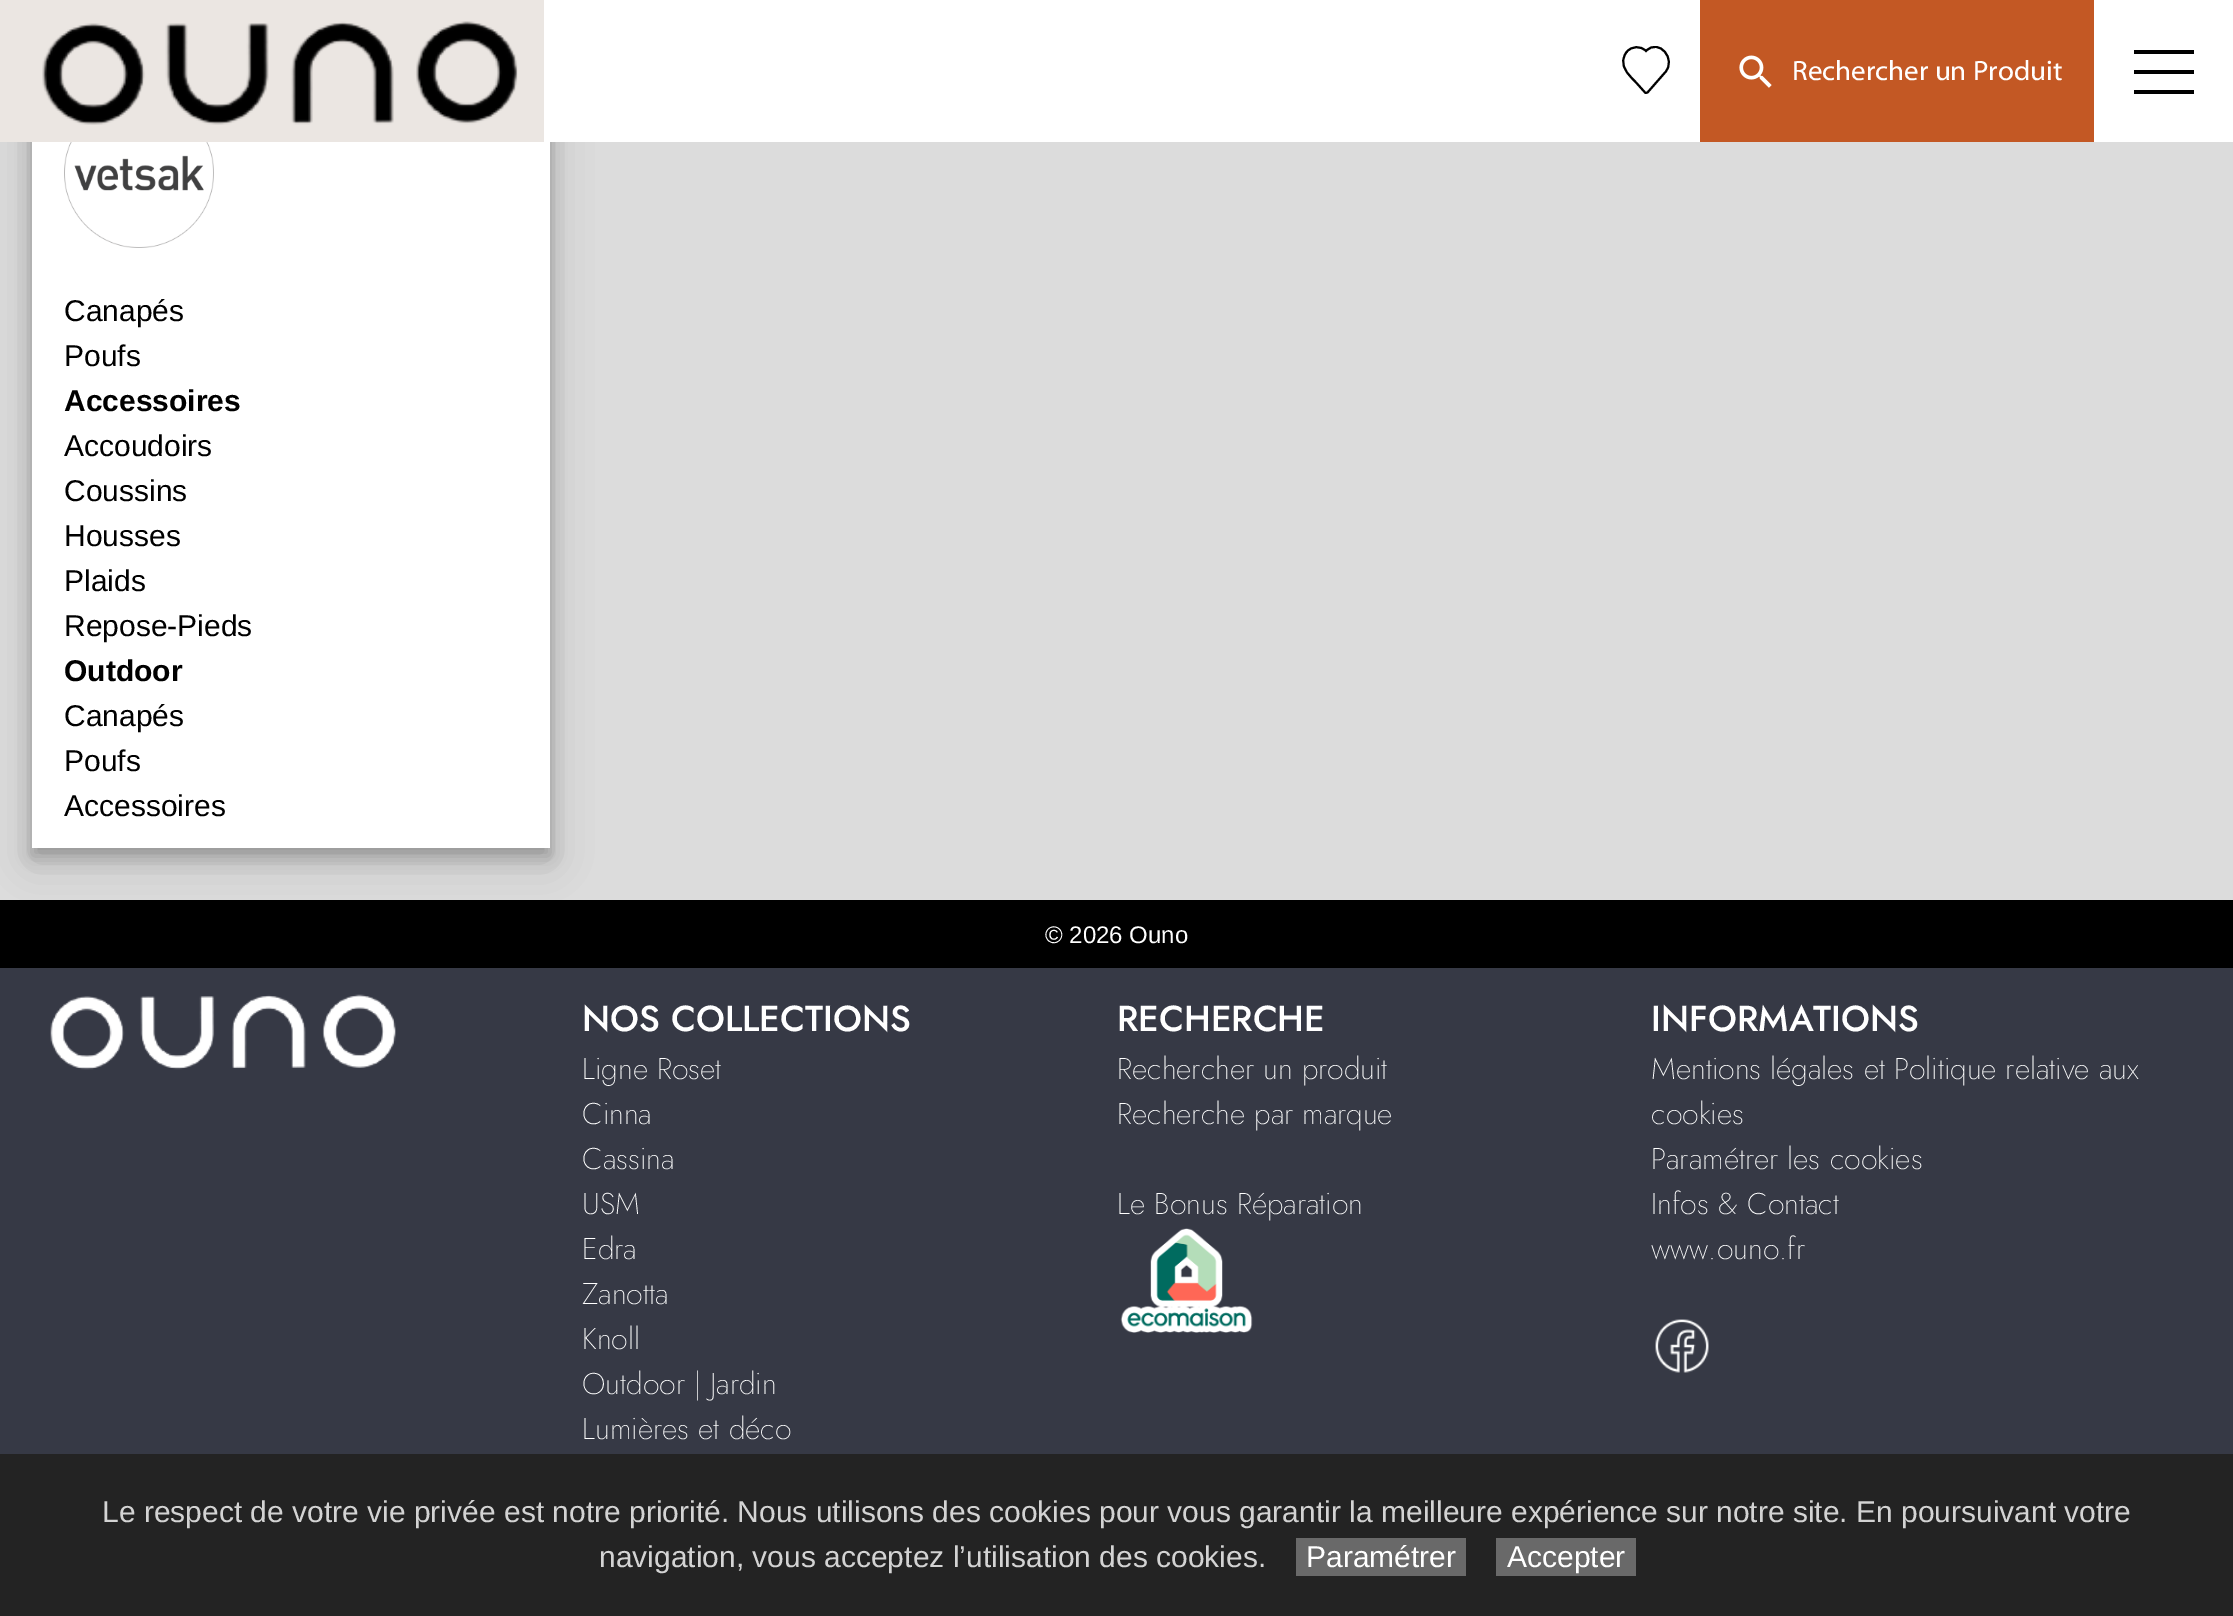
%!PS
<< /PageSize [2233 1616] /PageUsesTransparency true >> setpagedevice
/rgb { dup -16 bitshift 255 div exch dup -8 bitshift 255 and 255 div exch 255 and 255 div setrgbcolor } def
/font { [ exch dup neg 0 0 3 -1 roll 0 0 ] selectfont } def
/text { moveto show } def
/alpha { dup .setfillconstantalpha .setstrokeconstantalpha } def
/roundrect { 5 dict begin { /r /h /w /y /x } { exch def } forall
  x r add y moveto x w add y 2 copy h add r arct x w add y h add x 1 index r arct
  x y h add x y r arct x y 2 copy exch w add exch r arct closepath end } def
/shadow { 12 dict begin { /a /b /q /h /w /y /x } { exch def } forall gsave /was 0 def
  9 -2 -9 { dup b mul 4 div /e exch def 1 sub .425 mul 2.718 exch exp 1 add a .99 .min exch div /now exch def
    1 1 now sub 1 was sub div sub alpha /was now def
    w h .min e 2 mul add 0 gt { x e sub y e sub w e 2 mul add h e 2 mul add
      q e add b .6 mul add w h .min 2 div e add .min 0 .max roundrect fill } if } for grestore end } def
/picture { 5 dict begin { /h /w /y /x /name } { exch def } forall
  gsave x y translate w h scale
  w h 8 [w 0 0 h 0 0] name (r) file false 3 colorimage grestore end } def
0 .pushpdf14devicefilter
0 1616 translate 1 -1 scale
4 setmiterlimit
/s1 { /Myriad-Regular 28 font 16#FFFFFF rgb } def
/s2 { /LiberationSans-Regular 30 font 16#000000 rgb } def
/s3 { /LiberationSans-Bold 30 font 16#000000 rgb } def
/s4 { /LiberationSans-Regular 24 font 16#FFFFFF rgb } def
/s5 { /Jost-Medium 36 font 16#FFFFFF rgb } def
/s6 { /Jost-ExtraLight 30 font 16#FFFFFF rgb } def
/s7 { /LiberationSans-Regular 30 font 16#D3D3D3 rgb } def
/s8 { /LiberationSans-Regular 30 font 16#FFFFFF rgb } def
16#DCDCDC rgb
0 0 2233 1616 rectfill
16#000000 rgb
0 900 2233 68 rectfill
32 -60 518 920 0 20 0.19 shadow
32 -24 518 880 0 8 0.2 shadow
16#FFFFFF rgb
544 0 1689 142 rectfill
16#EBE6E2 rgb
0 0 544 142 rectfill
(pic1.raw) 42 21 476 104 picture
gsave
1622 46 48 48 rectclip
16#000000 rgb
2 setlinewidth
1627 51.5 moveto 1625 53.5 1624 56.5 1623.5 59 curveto 1621.5 69.5 1630.5 76.5 1636.5 83 curveto 1645.5 93 lineto 1647.5 92.5 lineto 1665 72.5 lineto 1677 59.5 1659 37.5 1646 51 curveto 1640.5 45.5 1632 46 1627 51.5 curveto closepath 1627 51.5 moveto 1628 52 lineto 1627 51.5 moveto 1628 52 lineto stroke
grestore
16#C35824 rgb
1700 0 394 142 rectfill
(pic2.raw) 1739 55 33 33 picture
s1
(Rechercher un Produit) 1792 80 text
16#000000 rgb
2134 50 60 4 rectfill
2134 70 60 4 rectfill
2134 90 60 4 rectfill
16#FFFFFF rgb
32 142 518 706 rectfill
(pic3.raw) 64 142 150 106 picture
s2
(Canapés) 64 321 text
(Poufs) 64 366 text
s3
(Accessoires) 64 411 text
s2
(Accoudoirs) 64 456 text
(Coussins) 64 501 text
(Housses) 64 546 text
(Plaids) 64 591 text
(Repose-Pieds) 64 636 text
s3
(Outdoor) 64 681 text
s2
(Canapés) 64 726 text
(Poufs) 64 771 text
(Accessoires) 64 816 text
s4
(© 2026 Ouno) 1045 943 text
16#363945 rgb
0 968 2233 486 rectfill
(pic4.raw) 50 994 346 76 picture
s5
(NOS COLLECTIONS) 582 1031 text
s6
(Ligne Roset) 582 1079 text
(Cinna) 582 1124 text
(Cassina) 582 1169 text
(USM) 582 1214 text
(Edra) 582 1259 text
(Zanotta) 582 1304 text
(Knoll) 582 1349 text
(Outdoor | Jardin) 582 1394 text
(Lumières et déco) 582 1439 text
s5
(RECHERCHE) 1117 1031 text
s6
(Rechercher un produit) 1117 1079 text
(Recherche par marque) 1117 1124 text
(Le Bonus Réparation) 1117 1214 text
(pic5.raw) 1120 1228 133 105 picture
s5
(INFORMATIONS) 1651 1031 text
s6
(Mentions légales et Politique relative aux) 1651 1079 text
(cookies) 1651 1124 text
(Paramétrer les cookies) 1651 1169 text
(Infos & Contact) 1651 1214 text
(www.ouno.fr) 1651 1259 text
(pic6.raw) 1655 1319 54 54 picture
16#232323 rgb
0 1454 2233 162 rectfill
s7
(Le respect de votre vie privée est notre priorité. Nous utilisons des cookies pour vous garantir la meilleure expérience sur notre site. En poursuivant votre) 102 1522 text
(navigation, vous acceptez l’utilisation des cookies.) 599 1567 text
16#696969 rgb
1296 1538 170 38 rectfill
s8
(Paramétrer) 1306 1567 text
16#696969 rgb
1496 1538 140 38 rectfill
s8
(Accepter) 1507 1567 text
.poppdf14devicefilter showpage
